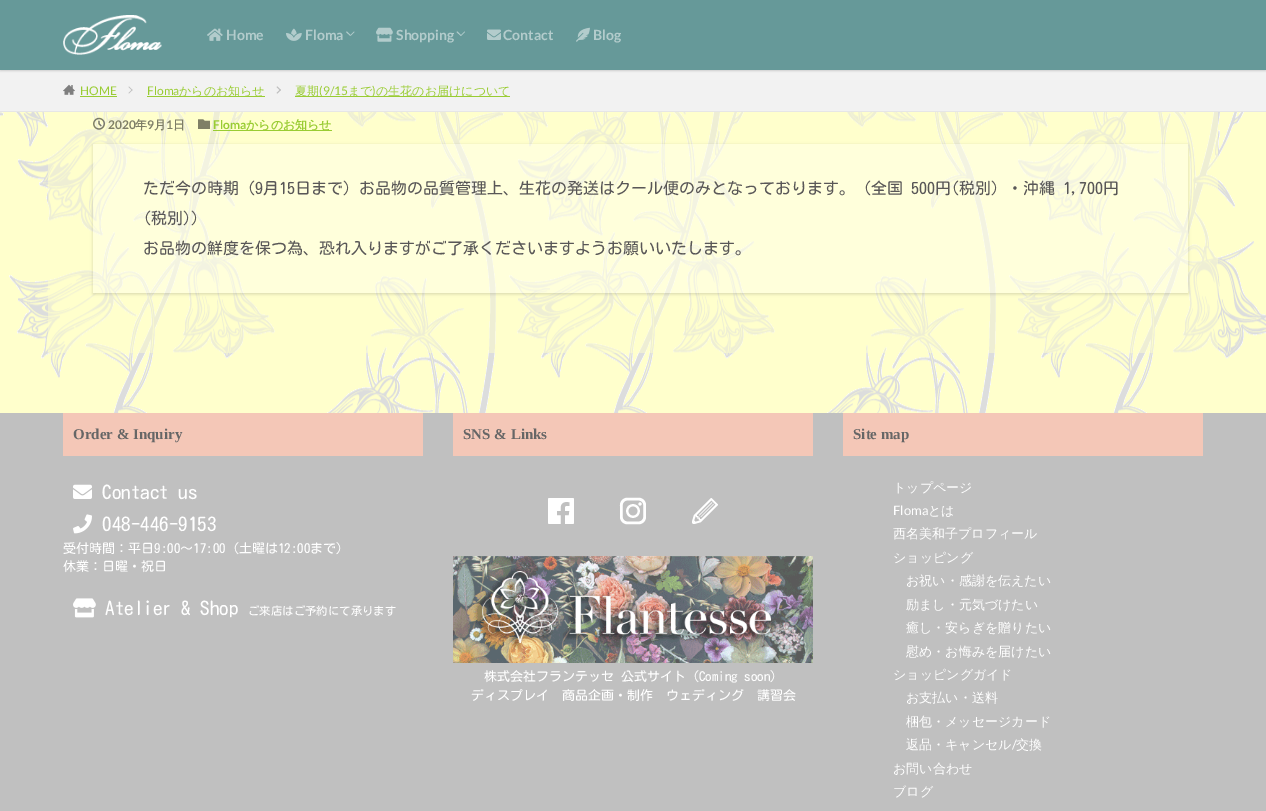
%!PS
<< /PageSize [1266 811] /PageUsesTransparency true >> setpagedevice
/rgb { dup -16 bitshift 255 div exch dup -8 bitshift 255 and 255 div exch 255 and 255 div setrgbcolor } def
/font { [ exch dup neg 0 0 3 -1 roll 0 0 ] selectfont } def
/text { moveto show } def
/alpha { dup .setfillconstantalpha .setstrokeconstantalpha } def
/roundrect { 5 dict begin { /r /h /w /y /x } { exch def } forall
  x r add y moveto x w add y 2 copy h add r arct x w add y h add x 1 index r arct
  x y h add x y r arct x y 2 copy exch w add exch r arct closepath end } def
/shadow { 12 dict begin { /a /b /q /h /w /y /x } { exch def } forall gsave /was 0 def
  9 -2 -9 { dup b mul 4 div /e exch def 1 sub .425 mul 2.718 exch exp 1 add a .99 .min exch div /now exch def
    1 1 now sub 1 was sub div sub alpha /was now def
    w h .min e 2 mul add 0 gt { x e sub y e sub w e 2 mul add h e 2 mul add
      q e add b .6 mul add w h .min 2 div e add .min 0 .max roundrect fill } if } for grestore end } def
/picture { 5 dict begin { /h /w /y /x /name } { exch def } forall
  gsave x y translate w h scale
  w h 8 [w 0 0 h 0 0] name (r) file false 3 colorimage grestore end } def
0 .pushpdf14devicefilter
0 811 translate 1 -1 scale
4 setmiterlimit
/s1 { /Lato-Bold 14 font 16#B3CCCC rgb } def
/s2 { /Lato-Regular 12 font 16#99CC33 rgb } def
/s3 { /WenQuanYiZenHei-Medium 12 font 16#99CC33 rgb } def
/s4 { /Lato-Bold 12 font 16#7E7E67 rgb } def
/s5 { /WenQuanYiZenHei-Bold 12 font 16#7E7E67 rgb } def
/s6 { /Lato-Bold 12 font 16#99CC33 rgb } def
/s7 { /WenQuanYiZenHei-Bold 12 font 16#99CC33 rgb } def
/s8 { /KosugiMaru-Regular 16 font 16#595757 rgb } def
/s9 { /LiberationSerif-Bold 15 font 16#666666 rgb } def
/s10 { /KosugiMaru-Regular 19 font 16#FFFFFF rgb } def
/s11 { /KosugiMaru-Regular 13 font 16#FFFFFF rgb } def
/s12 { /KosugiMaru-Regular 11.4 font 16#FFFFFF rgb } def
/s13 { /WenQuanYiZenHei-Medium 13 font 16#FFFFFF rgb } def
/s14 { /Lato-Regular 13 font 16#FFFFFF rgb } def
16#FFFFCC rgb
0 0 1266 811 rectfill
(pic1.raw) 0 112 1266 301 picture
16#F2F2F2 rgb
0 70 1266 41 rectfill
16#000000 rgb
0 1 1266 70 0 1 0.15 shadow
16#669999 rgb
0 0 1266 70 rectfill
(pic2.raw) 63 15 99 40 picture
(pic3.raw) 207 28 16 13 picture
s1
(Home) 226 40 text
(pic4.raw) 286 28 16 13 picture
(Floma) 305 40 text
354.5 32 moveto 350.5 36 lineto 350.5 35 lineto 354 31.5 lineto closepath fill
350.5 36 moveto 346 32 lineto 347 31.5 lineto 350.5 35 lineto closepath fill
(pic5.raw) 376 27 17 15 picture
(Shopping) 396 40 text
465 32 moveto 461 36 lineto 461 35 lineto 464.5 31.5 lineto closepath 461 36 moveto 456.5 32 lineto 457.5 31.5 lineto 461 35 lineto closepath fill
(pic6.raw) 487 29 14 11 picture
(Contact) 503 40 text
(pic7.raw) 576 27 14 15 picture
(Blog) 593 40 text
16#E6E6E6 rgb
0 111 1266 1 rectfill
(pic8.raw) 63 84 12 11 picture
s2
(HOME) 80 95 text
80 96 37 1 rectfill
16#BFBFBF rgb
129 86.5 moveto 132.5 90 lineto 132 90.5 lineto 128.5 87 lineto closepath fill
132 89.5 moveto 132.5 90 lineto 129 93.5 lineto 128.5 93 lineto closepath fill
s2
(Floma) 147 95 text
147 96 118 1 rectfill
s3
(からのお知らせ) 179 95 text
16#BFBFBF rgb
277.5 86.5 moveto 281 90 lineto 280 90.5 lineto 276.5 87 lineto closepath fill
280 89.5 moveto 281 90 lineto 277.5 93.5 lineto 276.5 93 lineto closepath fill
16#99CC33 rgb
295 96 215 1 rectfill
(夏期) 295 95 text
s2
(\(9/15) 319 95 text
s3
(まで の生花のお届けについて) 348 95 text
s2
(\)) 372 95 text
0.5 alpha
16#FFFFCC rgb
48 112 1170 241 rectfill
1 alpha
(pic9.raw) 93 117 12 13 picture
s4
(2020) 108 129 text
s5
(年) 135 129 text
s4
(9) 147 129 text
s5
(月) 154 129 text
s4
(1) 166 129 text
s5
(日) 173 129 text
(pic10.raw) 198 119 12 10 picture
s6
(Floma) 213 129 text
213 130 119 1 rectfill
s7
(からのお知らせ) 246 129 text
gsave
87 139 moveto 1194 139 lineto 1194 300 lineto 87 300 lineto closepath 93 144 moveto 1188 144 lineto 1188 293 lineto 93 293 lineto closepath eoclip newpath
16#000000 rgb
93 145 1095 149 0 1.5 0.15 shadow
grestore
0.3 alpha
16#FFFFFF rgb
93 144 1095 149 rectfill
1 alpha
s8
(ただ今の時期（9月15日まで）お品物の品質管理上、生花の発送はクール便のみとなっております。（全国 500円\(税別）・沖縄 1,700円) 143 194 text
(\(税別\)）) 143 224 text
(お品物の鮮度を保つ為、恐れ入りますがご了承くださいますようお願いいたします。) 143 254 text
16#C0C0C0 rgb
0 413 1266 398 rectfill
16#F4C7B7 rgb
63 413 360 43 rectfill
s9
(Order & Inquiry) 73 439 text
(pic11.raw) 73 484 19 15 picture
s10
(Contact us) 102 499 text
(pic12.raw) 73 514 19 20 picture
(048-446-9153) 102 531 text
s11
(受付時間：平日9:00～17:00（土曜は12:00まで）) 63 553 text
(休業：日曜・祝日) 63 571 text
(pic13.raw) 73 598 23 20 picture
s10
(Atelier & Shop) 105 615 text
s12
(ご来店はご予約にて承ります) 248 615 text
16#F4C7B7 rgb
453 413 360 43 rectfill
s9
(SNS & Links) 463 439 text
(pic14.raw) 548 498 26 26 picture
(pic15.raw) 619 497 27 28 picture
(pic16.raw) 692 498 26 26 picture
(pic17.raw) 453 556 360 107 picture
s11
(株式会社フランテッセ 公式サイト（Coming soon）) 484 681 text
(ディスプレイ　商品企画・制作　ウェディング　講習会) 471 700 text
16#F4C7B7 rgb
843 413 360 43 rectfill
s9
(Site map) 853 439 text
s13
(トップページ) 893 492 text
s14
(Floma) 893 515 text
s13
(とは) 928 515 text
(西名美和子プロフィール) 893 538 text
(ショッピング) 893 562 text
(お祝い・感謝を伝えたい) 906 585 text
(励まし・元気づけたい) 906 609 text
(癒し・安らぎを贈りたい) 906 632 text
(慰め・お悔みを届けたい) 906 656 text
(ショッピングガイド) 893 679 text
(お支払い・送料) 906 702 text
(梱包・メッセージカード) 906 726 text
(返品・キャンセル) 906 749 text
s14
(/) 1012 749 text
s13
(交換) 1016 749 text
(お問い合わせ) 893 773 text
(ブログ) 893 796 text
.poppdf14devicefilter showpage
